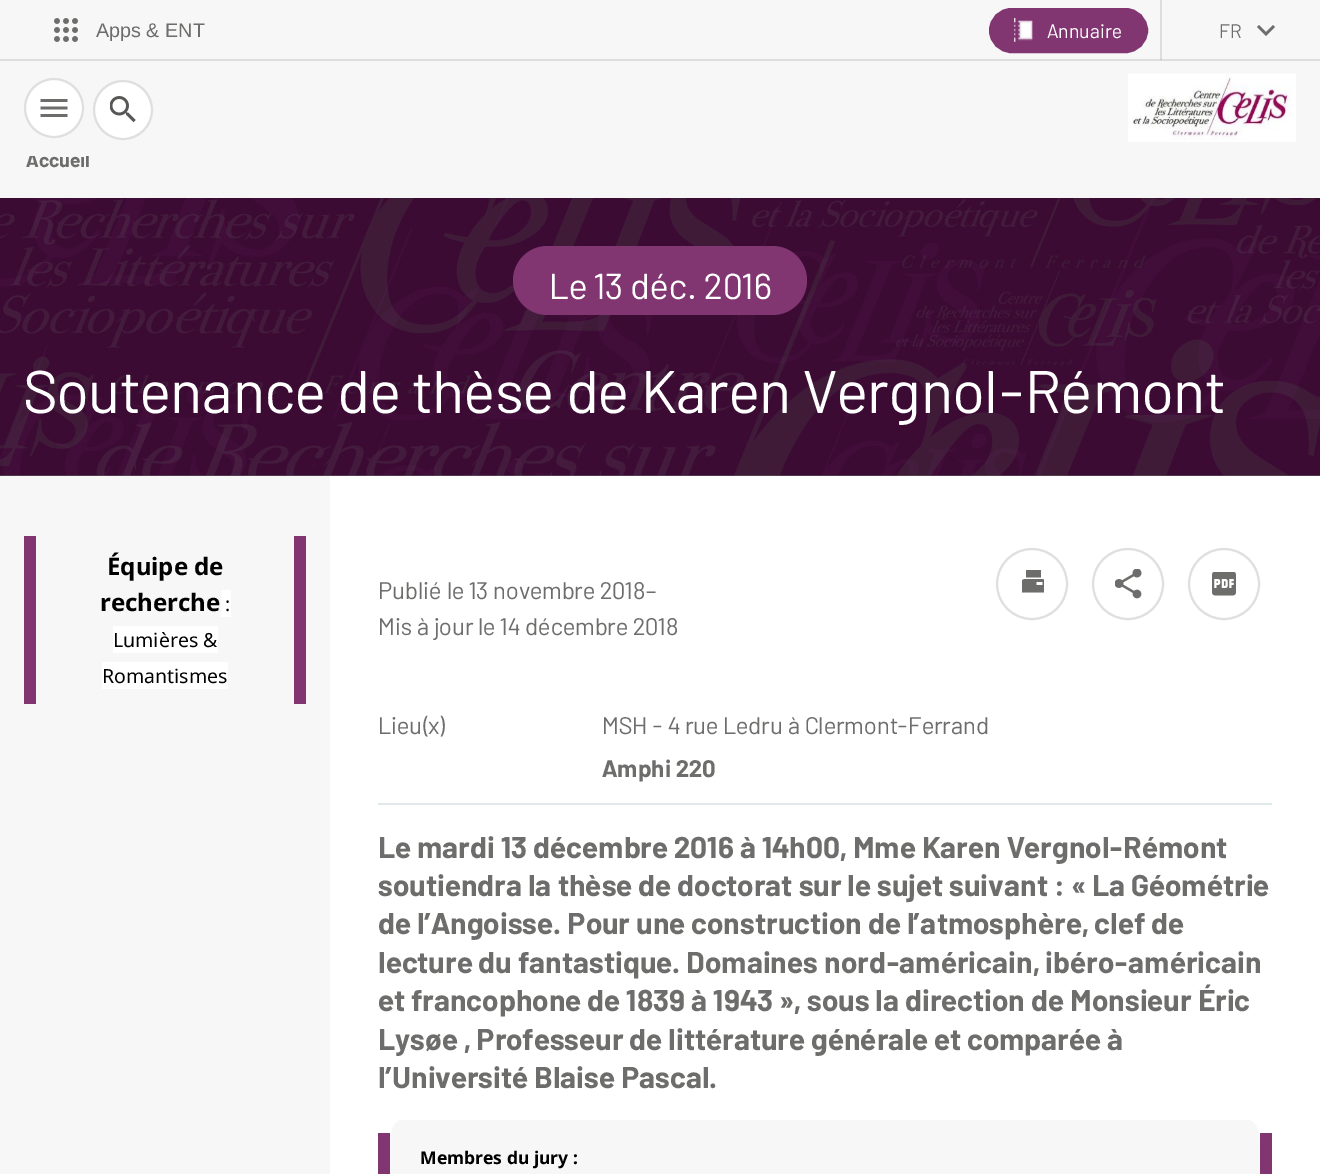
%!PS
<< /PageSize [1320 1174] >> setpagedevice
/rgb { dup -16 bitshift 255 div exch dup -8 bitshift 255 and 255 div exch 255 and 255 div setrgbcolor } def
/font { [ exch dup neg 0 0 3 -1 roll 0 0 ] selectfont } def
/text { moveto show } def
/circle { newpath 0 360 arc closepath } def
/roundrect { 5 dict begin { /r /h /w /y /x } { exch def } forall
  x r add y moveto x w add y 2 copy h add r arct x w add y h add x 1 index r arct
  x y h add x y r arct x y 2 copy exch w add exch r arct closepath end } def
/picture { 5 dict begin { /h /w /y /x /name } { exch def } forall
  gsave x y translate w h scale
  w h 8 [w 0 0 h 0 0] name (r) file false 3 colorimage grestore end } def
0 1174 translate 1 -1 scale
4 setmiterlimit
/s1 { /Barlow-Bold 19.5 font 16#6D6D6C rgb } def
/s2 { /LiberationSans-Regular 19.75 font 16#6D6D6C rgb } def
/s3 { /Barlow-Regular 19.5 font 16#FFFFFF rgb } def
/s4 { /Barlow-Regular 19.5 font 16#6D6D6C rgb } def
/s5 { /Barlow-Regular 36 font 16#FFFFFF rgb } def
/s6 { /Barlow-Regular 60 font 16#FFFFFF rgb } def
/s7 { /NotoSans-Bold 24 font 16#000000 rgb } def
/s8 { /NotoSans-Regular 19.5 font 16#000000 rgb } def
/s9 { /Barlow-Regular 24 font 16#6D6D6C rgb } def
/s10 { /Barlow-Bold 24 font 16#6D6D6C rgb } def
/s11 { /Barlow-Bold 30 font 16#6D6D6C rgb } def
/s12 { /NotoSans-Bold 17.5 font 16#000000 rgb } def
16#F7F7F7 rgb
0 0 1320 1174 rectfill
16#636363 rgb
0 475 1320 1 rectfill
s1
(Accueil) 26 167 text
16#F7F7F7 rgb
29 152 60 4 rectfill
16#DEDEDE rgb
1160 0 2 60 rectfill
0 59 1320 2 rectfill
16#C8C8C8 rgb
1160 59 2 1 rectfill
(pic1.raw) 54 18 24 24 picture
s2
(Apps & ENT) 96 37 text
16#813672 rgb
990 9 157 43 21.5 roundrect gsave fill grestore
2 setlinewidth
stroke
(pic2.raw) 1014 18 19 24 picture
s3
(Annuaire) 1047 38 text
s4
(FR) 1219 38 text
1259 25 moveto 1266 32 lineto 1273 25 lineto 1275 27 lineto 1266 36 lineto 1257 27 lineto closepath eofill
16#FFFFFF rgb
54 108 29 circle gsave fill grestore
16#DFDFDF rgb
stroke
(pic3.raw) 40 99 28 18 picture
16#FFFFFF rgb
123 110 29 circle gsave fill grestore
16#DFDFDF rgb
stroke
(pic4.raw) 110 96 26 27 picture
(pic5.raw) 1128 73 168 69 picture
(pic6.raw) 0 198 1320 278 picture
16#813672 rgb
513 246 294 69 34.5 roundrect fill
s5
(Le 13 déc. 2016) 549 299 text
s6
(Soutenance de thèse de Karen Vergnol-Rémont) 24 413 text
16#813672 rgb
294 536 12 168 rectfill
24 536 12 168 rectfill
s7
(Équipe de) 107 575 text
(recherche) 100 611 text
16#FFFFFF rgb
221 590 10 27 rectfill
s8
(:) 225 611 text
16#FFFFFF rgb
113 626 105 27 rectfill
s8
(Lumières &) 113 647 text
16#FFFFFF rgb
102 662 126 27 rectfill
s8
(Romantismes) 102 683 text
16#FFFFFF rgb
330 476 990 698 rectfill
s9
(Publié le 13 novembre 2018–) 378 599 text
(Mis à jour le 14 décembre 2018) 378 635 text
16#DFDFDF rgb
1032 584 35 circle stroke
(pic7.raw) 1022 570 22 23 picture
1128 584 35 circle stroke
(pic8.raw) 1115 569 27 30 picture
1224 584 35 circle stroke
(pic9.raw) 1212 572 24 24 picture
16#E0E8EA rgb
378 803 894 2 rectfill
s9
(Lieu\(x\)) 378 734 text
(MSH - 4 rue Ledru à Clermont-Ferrand) 602 734 text
s10
(Amphi 220) 602 777 text
s11
(Le mardi 13 décembre 2016 à 14h00, Mme Karen Vergnol-Rémont) 378 858 text
(soutiendra la thèse de doctorat sur le sujet suivant : « La Géométrie) 378 896 text
(de l’Angoisse. Pour une construction de l’atmosphère, clef de) 378 934 text
(lecture du fantastique. Domaines nord-américain, ibéro-américain) 378 973 text
(et francophone de 1839 à 1943 », sous la direction de Monsieur Éric) 378 1011 text
(Lysøe , Professeur de littérature générale et comparée à) 378 1050 text
(l’Université Blaise Pascal.) 378 1088 text
16#F7F7F7 rgb
402 1120 moveto 1248 1120 lineto 1255 1120 1260 1131 1260 1144 curveto 1260 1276 lineto 1260 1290 1255 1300 1248 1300 curveto 402 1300 lineto 395 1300 390 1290 390 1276 curveto 390 1144 lineto 390 1131 395 1120 402 1120 curveto closepath fill
16#813672 rgb
1260 1133 12 41 rectfill
378 1133 12 41 rectfill
s12
(Membres du jury :) 420 1164 text
showpage
